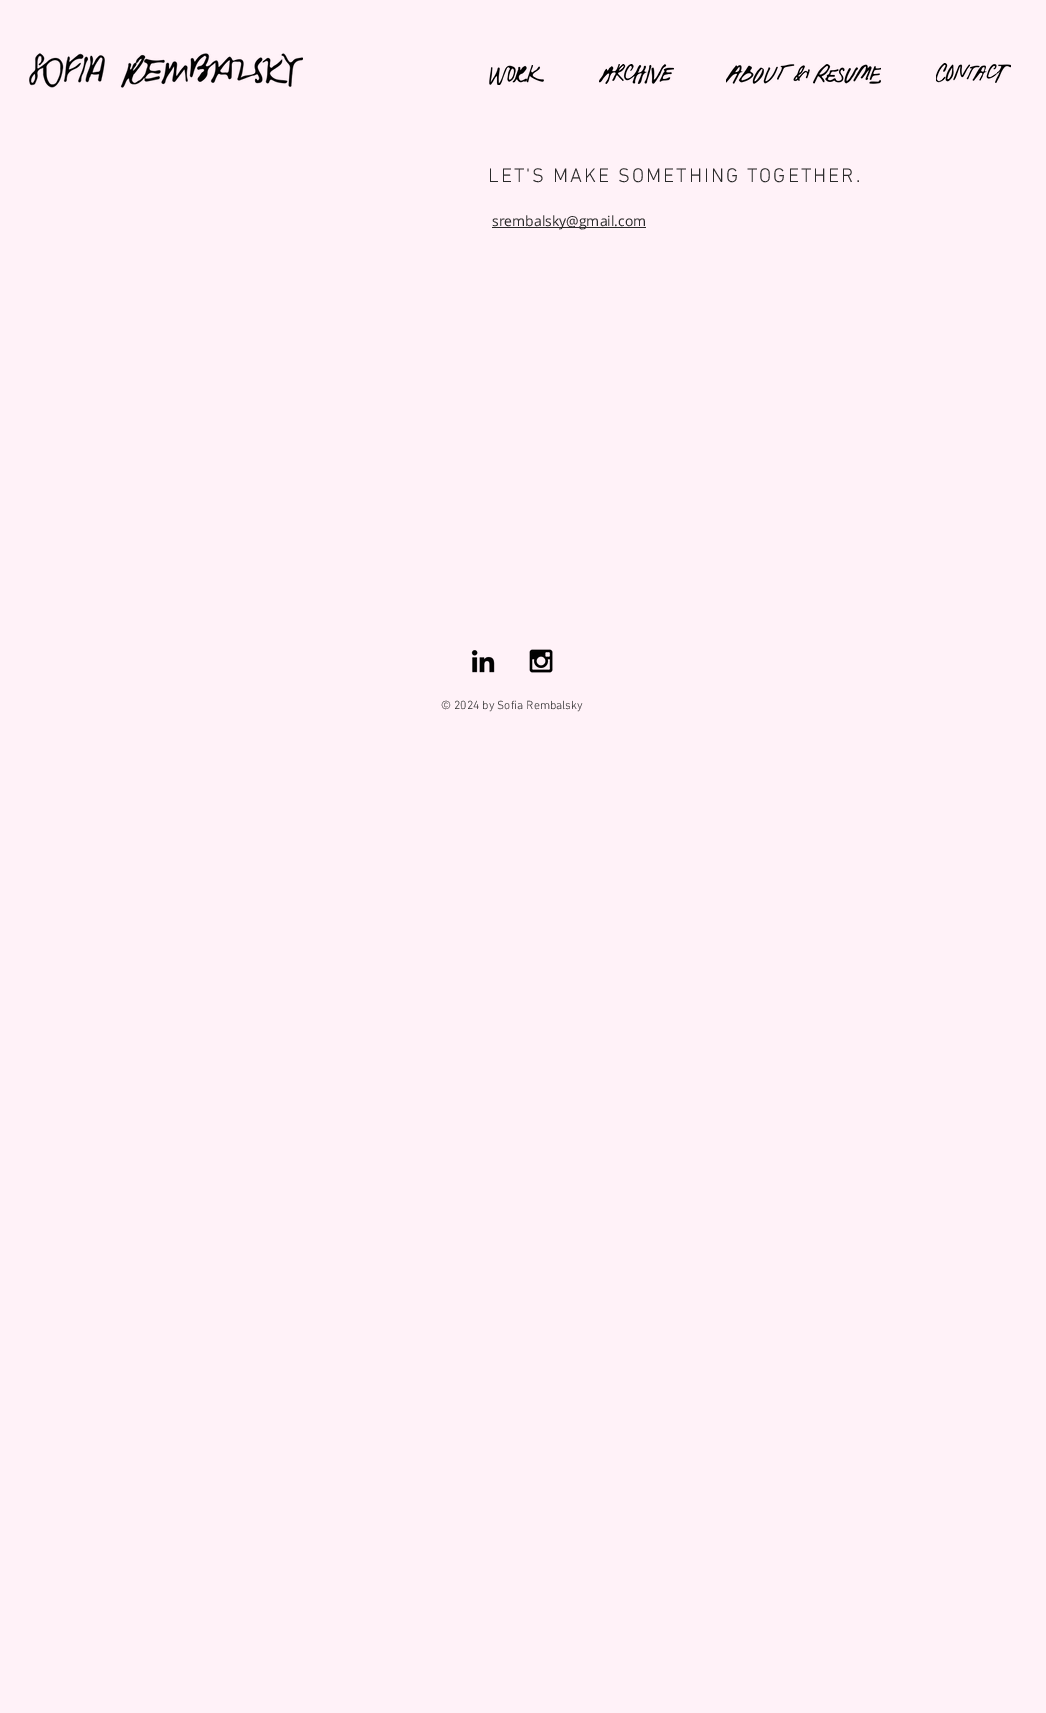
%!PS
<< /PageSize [1046 1713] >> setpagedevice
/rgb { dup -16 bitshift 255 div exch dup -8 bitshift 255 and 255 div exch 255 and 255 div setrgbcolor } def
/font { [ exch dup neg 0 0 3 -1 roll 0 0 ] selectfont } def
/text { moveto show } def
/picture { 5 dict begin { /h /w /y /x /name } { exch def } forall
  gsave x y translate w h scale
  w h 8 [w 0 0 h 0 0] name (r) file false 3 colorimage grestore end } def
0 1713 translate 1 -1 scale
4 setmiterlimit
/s1 { /OpenSans-Regular 14 font 16#2A2A2A rgb } def
/s2 { /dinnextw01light-Light 12 font 16#2A2A2A rgb } def
16#FFF2F8 rgb
0 0 1046 1713 rectfill
(pic1.raw) 29 53 274 35 picture
(pic2.raw) 489 65 55 20 picture
(pic3.raw) 599 64 75 20 picture
(pic4.raw) 726 64 155 20 picture
(pic5.raw) 936 63 75 20 picture
/dinnextw01light-Light 20 font
16#2A2A2A rgb
488 182 moveto 2 0 (LET'S MAKE SOMETHING TOGETHER.) ashow
492 227 154 1 rectfill
s1
(srembalsky@gmail.com) 492 226 text
(pic6.raw) 471 650 24 23 picture
(pic7.raw) 529 649 24 24 picture
s2
(© 2024 by Sofia Rembalsky) 441 709 text
showpage
